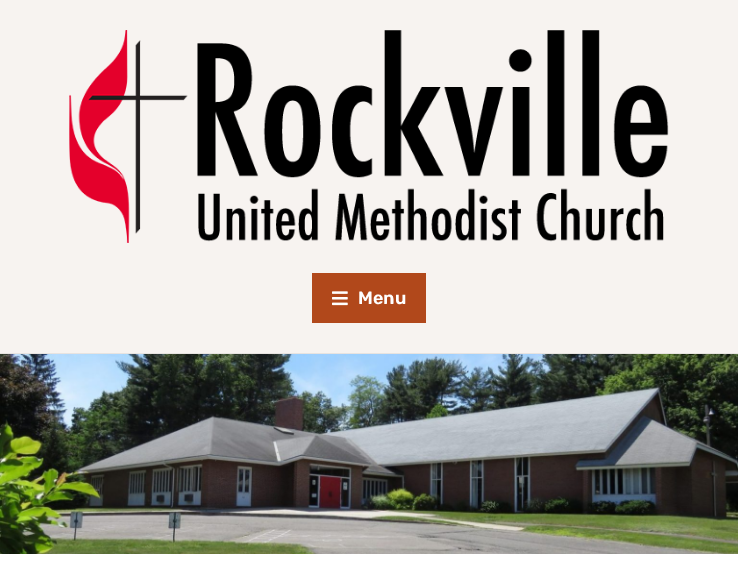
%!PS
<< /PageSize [738 573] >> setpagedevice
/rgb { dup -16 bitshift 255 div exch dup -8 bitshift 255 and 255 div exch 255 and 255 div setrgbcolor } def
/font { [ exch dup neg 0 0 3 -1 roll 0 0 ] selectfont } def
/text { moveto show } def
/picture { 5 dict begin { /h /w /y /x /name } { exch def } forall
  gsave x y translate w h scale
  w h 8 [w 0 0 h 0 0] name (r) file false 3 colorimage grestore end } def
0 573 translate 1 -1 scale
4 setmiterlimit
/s1 { /Rubik-SemiBold 18 font 16#FFFFFF rgb } def
16#FFFFFF rgb
0 0 738 573 rectfill
16#F7F3F0 rgb
0 0 738 353 rectfill
16#E7E3E0 rgb
0 353 738 1 rectfill
(pic1.raw) 69 30 600 213 picture
16#B1481B rgb
312 273 114 50 rectfill
(pic2.raw) 332 291 16 15 picture
s1
(Menu) 358 304 text
(pic3.raw) 0 354 738 200 picture
showpage
